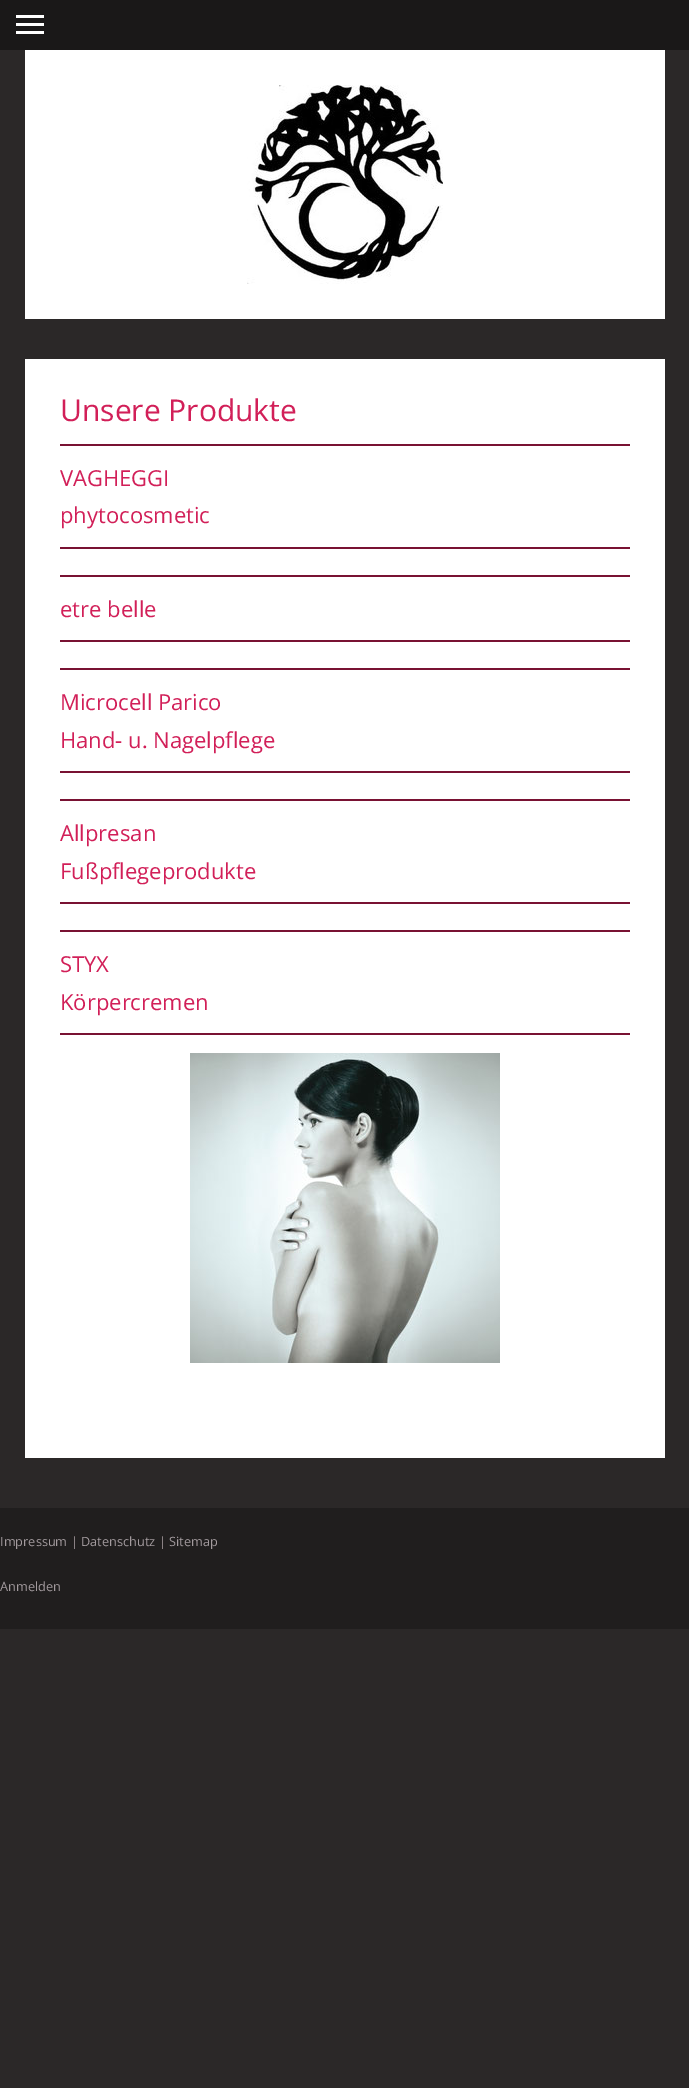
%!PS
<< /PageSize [689 2088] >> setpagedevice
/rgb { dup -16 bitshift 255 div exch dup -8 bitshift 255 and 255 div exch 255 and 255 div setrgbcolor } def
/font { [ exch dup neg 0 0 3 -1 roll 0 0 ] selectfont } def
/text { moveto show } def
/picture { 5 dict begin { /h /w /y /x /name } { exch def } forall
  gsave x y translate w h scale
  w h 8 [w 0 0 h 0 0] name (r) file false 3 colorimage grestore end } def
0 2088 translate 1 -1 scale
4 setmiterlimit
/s1 { /OpenSans-Regular 30 font 16#D21F58 rgb } def
/s2 { /OpenSans-Regular 22 font 16#D21F58 rgb } def
/s3 { /OpenSans-Regular 12.75 font 16#A39B9E rgb } def
/s4 { /OpenSans-Regular 12.75 font 16#8A8184 rgb } def
16#2B2828 rgb
0 0 689 2088 rectfill
16#1A1818 rgb
0 0 689 50 rectfill
16#FFFFFF rgb
16 23 28 3 rectfill
16 15 28 3 rectfill
16 31 28 3 rectfill
25 50 640 269 rectfill
(pic1.raw) 247 85 196 199 picture
25 359 640 1099 rectfill
s1
(Unsere Produkte) 60 421 text
16#791233 rgb
60 444 570 2 rectfill
s2
(VAGHEGGI) 60 486 text
(phytocosmetic) 60 523 text
16#791233 rgb
60 547 570 2 rectfill
60 575 570 2 rectfill
s2
(etre belle) 60 617 text
16#791233 rgb
60 640 570 2 rectfill
60 668 570 2 rectfill
s2
(Microcell Parico) 60 710 text
(Hand- u. Nagelpflege) 60 748 text
16#791233 rgb
60 771 570 2 rectfill
60 799 570 2 rectfill
s2
(Allpresan) 60 841 text
(Fußpflegeprodukte) 60 879 text
16#791233 rgb
60 902 570 2 rectfill
60 930 570 2 rectfill
s2
(STYX) 60 972 text
(Körpercremen) 60 1010 text
16#791233 rgb
60 1033 570 2 rectfill
(pic2.raw) 190 1053 310 310 picture
16#201E1E rgb
0 1508 689 121 rectfill
s3
(Impressum) 0 1546 text
s4
(|) 71 1546 text
s3
(Datenschutz) 81 1546 text
s4
(|) 159 1546 text
s3
(Sitemap) 169 1546 text
(Anmelden) 0 1591 text
showpage
